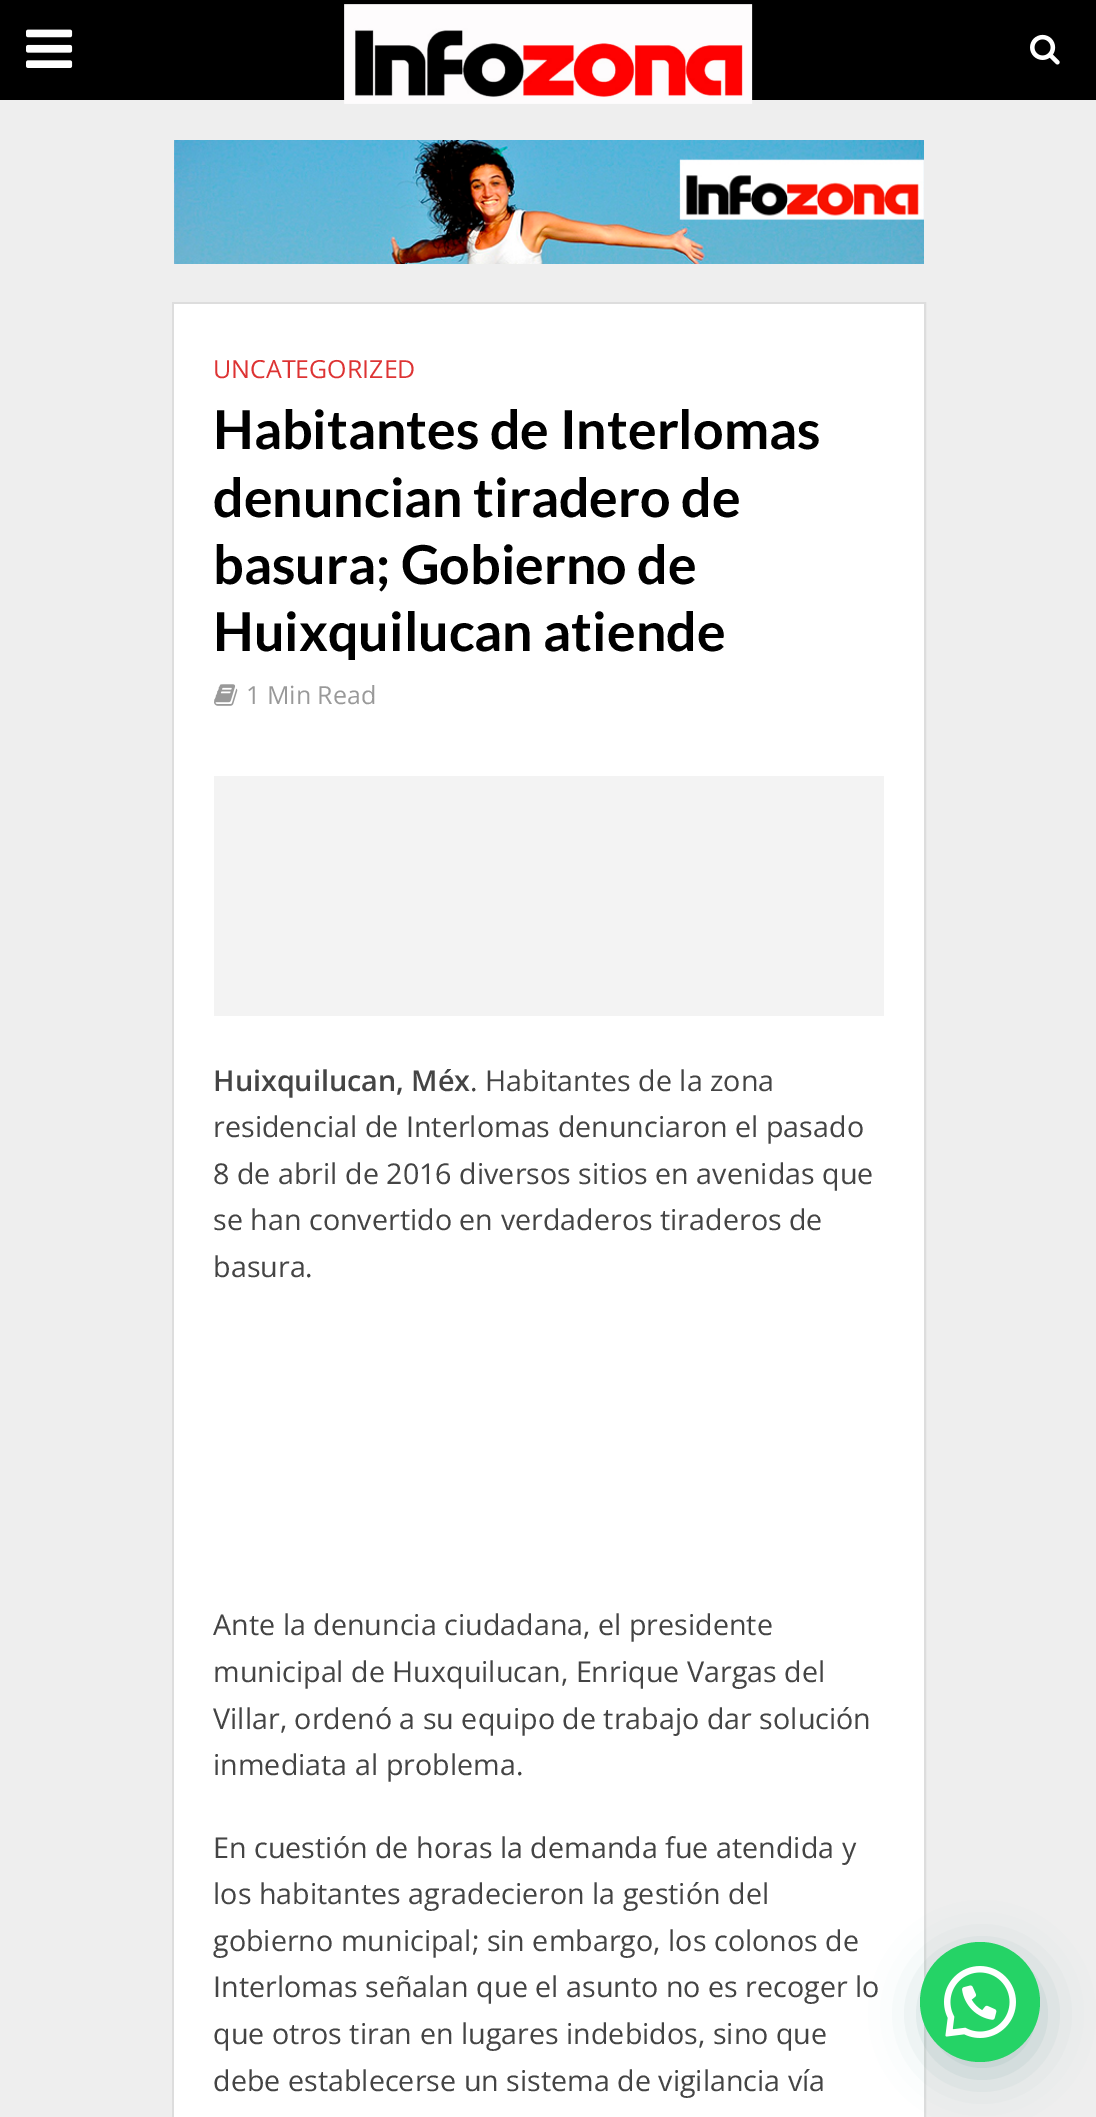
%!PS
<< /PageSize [1096 2117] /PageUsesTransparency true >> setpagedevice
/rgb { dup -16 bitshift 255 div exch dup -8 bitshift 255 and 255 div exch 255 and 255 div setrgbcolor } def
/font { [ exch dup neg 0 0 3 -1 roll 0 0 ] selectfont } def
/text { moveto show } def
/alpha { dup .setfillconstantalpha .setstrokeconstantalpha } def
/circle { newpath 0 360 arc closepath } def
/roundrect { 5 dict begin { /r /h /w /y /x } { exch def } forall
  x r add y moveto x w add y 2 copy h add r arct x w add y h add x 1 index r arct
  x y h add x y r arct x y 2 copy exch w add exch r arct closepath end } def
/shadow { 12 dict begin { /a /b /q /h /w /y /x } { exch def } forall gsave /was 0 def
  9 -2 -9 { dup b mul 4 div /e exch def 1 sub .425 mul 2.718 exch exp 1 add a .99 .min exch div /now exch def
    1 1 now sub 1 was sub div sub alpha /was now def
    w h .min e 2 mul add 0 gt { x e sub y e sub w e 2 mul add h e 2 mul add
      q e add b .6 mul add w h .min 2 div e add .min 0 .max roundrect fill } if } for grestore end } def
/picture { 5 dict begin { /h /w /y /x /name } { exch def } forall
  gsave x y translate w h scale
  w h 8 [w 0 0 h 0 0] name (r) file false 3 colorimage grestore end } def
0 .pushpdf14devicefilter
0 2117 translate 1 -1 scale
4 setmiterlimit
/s1 { /OpenSans-Regular 25 font 16#DD3333 rgb } def
/s2 { /Lato-Bold 53.75 font 16#000000 rgb } def
/s3 { /OpenSans-Regular 25 font 16#999999 rgb } def
/s4 { /OpenSans-SemiBold 28.7 font 16#444444 rgb } def
/s5 { /OpenSans-Regular 28.7 font 16#444444 rgb } def
16#EEEEEE rgb
0 0 1096 2117 rectfill
16#000000 rgb
0 0 1096 100 rectfill
(pic1.raw) 26 29 47 39 picture
(pic2.raw) 344 4 409 100 picture
(pic3.raw) 1030 34 30 31 picture
(pic4.raw) 174 140 750 124 picture
16#DDDDDD rgb
2 setlinewidth
173 303 752 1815 rectstroke
16#FFFFFF rgb
174 304 750 1813 rectfill
s1
(UNCATEGORIZED) 213 378 text
s2
(Habitantes de Interlomas) 213 449 text
(denuncian tiradero de) 213 517 text
(basura; Gobierno de) 213 584 text
(Huixquilucan atiende) 213 651 text
(pic5.raw) 214 684 24 22 picture
s3
(1 Min Read) 246 704 text
16#F3F3F3 rgb
214 776 670 240 rectfill
s4
(Huixquilucan, Méx) 213 1091 text
s5
(. Habitantes de la zona) 470 1091 text
(residencial de Interlomas denunciaron el pasado) 213 1137 text
(8 de abril de 2016 diversos sitios en avenidas que) 213 1184 text
(se han convertido en verdaderos tiraderos de) 213 1230 text
(basura.) 213 1277 text
(Ante la denuncia ciudadana, el presidente) 213 1635 text
(municipal de Huxquilucan, Enrique Vargas del) 213 1682 text
(Villar, ordenó a su equipo de trabajo dar solución) 213 1729 text
(inmediata al problema.) 213 1775 text
(En cuestión de horas la demanda fue atendida y) 213 1858 text
(los habitantes agradecieron la gestión del) 213 1904 text
(gobierno municipal; sin embargo, los colonos de) 213 1951 text
(Interlomas señalan que el asunto no es recoger lo) 213 1997 text
(que otros tiran en lugares indebidos, sino que) 213 2044 text
(debe establecerse un sistema de vigilancia vía) 213 2091 text
16#075E54 rgb
922 1954 120 120 60 24 0.24 shadow
16#25D366 rgb
980 2002 60 circle fill
(pic6.raw) 944 1966 72 72 picture
.poppdf14devicefilter showpage
